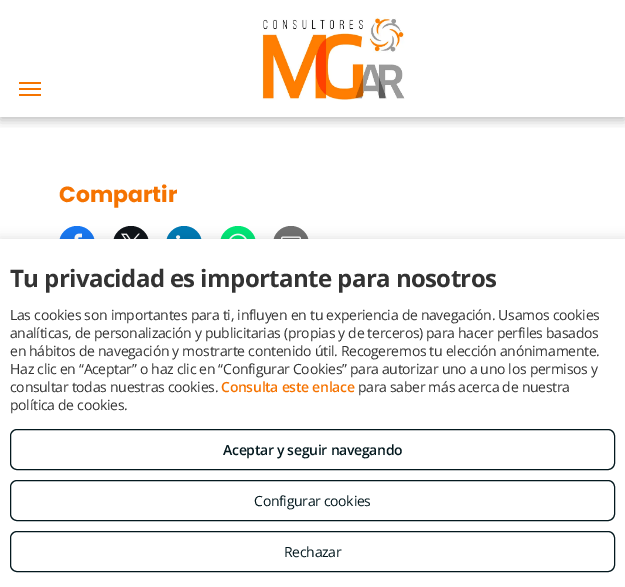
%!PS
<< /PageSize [625 587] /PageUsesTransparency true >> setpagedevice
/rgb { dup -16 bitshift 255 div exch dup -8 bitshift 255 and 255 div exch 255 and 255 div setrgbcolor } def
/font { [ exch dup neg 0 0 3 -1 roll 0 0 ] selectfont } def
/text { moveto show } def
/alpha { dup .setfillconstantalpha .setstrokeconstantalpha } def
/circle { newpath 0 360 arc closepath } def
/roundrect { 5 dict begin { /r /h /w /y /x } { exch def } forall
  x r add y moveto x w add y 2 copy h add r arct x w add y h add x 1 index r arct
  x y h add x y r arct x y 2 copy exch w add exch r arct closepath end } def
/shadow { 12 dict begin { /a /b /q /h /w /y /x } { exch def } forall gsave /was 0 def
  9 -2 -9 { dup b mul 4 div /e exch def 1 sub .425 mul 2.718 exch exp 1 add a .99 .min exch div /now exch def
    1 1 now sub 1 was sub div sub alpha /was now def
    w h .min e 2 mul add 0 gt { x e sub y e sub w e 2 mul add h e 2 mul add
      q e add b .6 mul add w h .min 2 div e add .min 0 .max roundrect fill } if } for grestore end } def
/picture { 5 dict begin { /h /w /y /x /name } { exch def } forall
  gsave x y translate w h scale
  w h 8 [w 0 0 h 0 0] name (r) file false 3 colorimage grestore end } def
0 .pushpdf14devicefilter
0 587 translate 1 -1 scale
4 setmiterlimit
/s1 { /Poppins-Bold 22 font 16#F57301 rgb } def
16#FFFFFF rgb
0 0 625 587 rectfill
gsave
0 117 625 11 rectclip
16#000000 rgb
0 3 625 117 0 5.5 0.25 shadow
grestore
(pic1.raw) 262 17 143 83 picture
16#F57400 rgb
19 82 22 2 rectfill
19 88 22 2 rectfill
19 94 22 2 rectfill
s1
(Compartir) 59 202 text
16#1877F2 rgb
77 244 18 circle fill
(pic2.raw) 74 233 8 6 picture
16#0F1419 rgb
131 244 18 circle fill
(pic3.raw) 121 233 19 6 picture
16#0079B4 rgb
184 244 18 circle fill
(pic4.raw) 176 235 5 4 picture
16#01E675 rgb
238 244 18 circle fill
(pic5.raw) 229 233 18 6 picture
16#707070 rgb
291 244 18 circle fill
(pic6.raw) 281 236 20 3 picture
16#000000 rgb
0 237 625 348 0 5 0.1 shadow
16#FFFFFF rgb
0 239 625 348 rectfill
/OpenSans-Bold 24 font
16#333333 rgb
10 287 moveto -0.6 0 (Tu privacidad es importante para nosotros) ashow
/OpenSans-Regular 14 font
10 320 moveto -0.3 0 (Las cookies son importantes para ti, influyen en tu experiencia de navegación. Usamos cookies) ashow
10 338 moveto -0.3 0 (analíticas, de personalización y publicitarias \(propias y de terceros\) para hacer perfiles basados) ashow
10 356 moveto -0.3 0 (en hábitos de navegación y mostrarte contenido útil. Recogeremos tu elección anónimamente.) ashow
10 374 moveto -0.3 0 (Haz clic en “Aceptar” o haz clic en “Configurar Cookies” para autorizar uno a uno los permisos y) ashow
10 392 moveto -0.3 0 (consultar todas nuestras cookies.) ashow
/OpenSans-SemiBold 14 font
16#F57301 rgb
221 392 moveto -0.3 0 (Consulta este enlace) ashow
/OpenSans-Regular 14 font
16#333333 rgb
358 392 moveto -0.3 0 (para saber más acerca de nuestra) ashow
10 410 moveto -0.3 0 (política de cookies.) ashow
16#03181E rgb
10.5 429.5 604 40 6.5 roundrect stroke
/OpenSans-SemiBold 14 font
223 455 moveto -0.3 0 (Aceptar y seguir navegando) ashow
10.5 480.5 604 40 6.5 roundrect stroke
/OpenSans-Regular 14 font
254 506 moveto -0.3 0 (Configurar cookies) ashow
10.5 531.5 604 40 6.5 roundrect stroke
284 557 moveto -0.3 0 (Rechazar) ashow
.poppdf14devicefilter showpage
